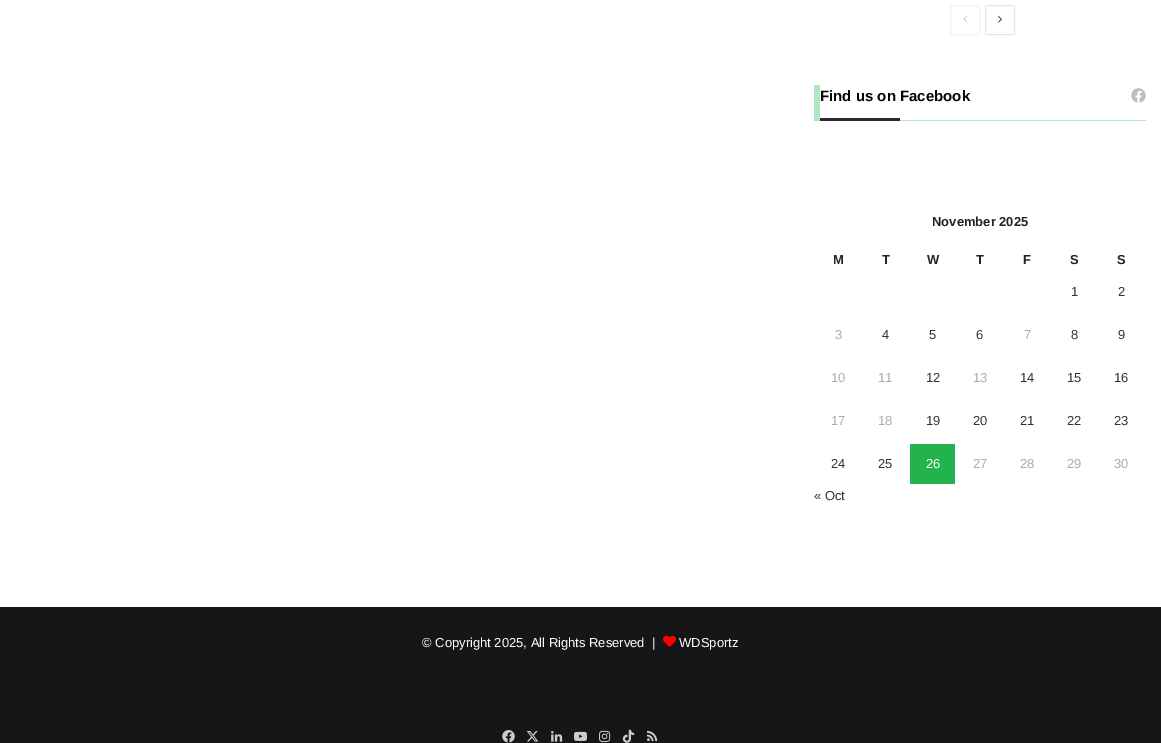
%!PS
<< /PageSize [1161 743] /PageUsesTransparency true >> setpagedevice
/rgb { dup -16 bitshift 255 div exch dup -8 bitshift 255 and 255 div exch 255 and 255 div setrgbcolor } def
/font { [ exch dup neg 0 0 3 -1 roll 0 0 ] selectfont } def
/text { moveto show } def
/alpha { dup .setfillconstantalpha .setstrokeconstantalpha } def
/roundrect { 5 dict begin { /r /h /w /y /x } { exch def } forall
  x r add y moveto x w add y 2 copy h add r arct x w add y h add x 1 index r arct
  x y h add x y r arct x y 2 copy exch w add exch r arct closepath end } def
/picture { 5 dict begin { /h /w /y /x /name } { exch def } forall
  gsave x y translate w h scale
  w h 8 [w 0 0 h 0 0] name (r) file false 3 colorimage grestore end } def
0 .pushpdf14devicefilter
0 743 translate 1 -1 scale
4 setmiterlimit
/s1 { /LiberationSans-Bold 15 font 16#030303 rgb } def
/s2 { /LiberationSans-Bold 13 font 16#242424 rgb } def
/s3 { /LiberationSans-Regular 13 font 16#2E3136 rgb } def
/s4 { /LiberationSans-Regular 13 font 16#ABABAB rgb } def
/s5 { /LiberationSans-Regular 13 font 16#FFFFFF rgb } def
16#FFFFFF rgb
0 0 1161 743 rectfill
16#F2F2F2 rgb
950.5 5.5 29 29 1.5 roundrect stroke
(pic1.raw) 963 16 5 7 picture
16#E6E6E6 rgb
985.5 5.5 29 29 1.5 roundrect stroke
(pic2.raw) 998 16 4 7 picture
16#B1E6C5 rgb
1146 121 moveto 814 121 lineto 820 120 lineto 1146 120 lineto closepath fill
0.32 alpha
16#0CB04B rgb
814 121 moveto 814 85 lineto 820 85 lineto 820 120 lineto closepath fill
1 alpha
s1
(Find us on Facebook) 820 101 text
(pic3.raw) 1131 88 15 15 picture
16#292B2F rgb
820 118 80 3 rectfill
s2
(November 2025) 932 226 text
(M) 833 264 text
(T) 882 264 text
(W) 927 264 text
(T) 976 264 text
(F) 1023 264 text
(S) 1070 264 text
(S) 1117 264 text
s3
(1) 1071 296 text
(2) 1118 296 text
s4
(3) 835 339 text
s3
(4) 882 339 text
(5) 929 339 text
(6) 976 339 text
s4
(7) 1024 339 text
s3
(8) 1071 339 text
(9) 1118 339 text
s4
(10) 831 382 text
(11) 878 382 text
s3
(12) 926 382 text
s4
(13) 973 382 text
s3
(14) 1020 382 text
(15) 1067 382 text
(16) 1114 382 text
s4
(17) 831 425 text
(18) 878 425 text
s3
(19) 926 425 text
(20) 973 425 text
(21) 1020 425 text
(22) 1067 425 text
(23) 1114 425 text
(24) 831 468 text
(25) 878 468 text
16#23B34D rgb
910 444 45 40 rectfill
s5
(26) 926 468 text
s4
(27) 973 468 text
(28) 1020 468 text
(29) 1067 468 text
(30) 1114 468 text
s3
(« Oct) 814 500 text
16#161619 rgb
0 607 1161 136 rectfill
s5
(© Copyright 2025, All Rights Reserved  |) 422 647 text
(pic4.raw) 663 635 13 12 picture
(WDSportz) 679 647 text
(pic5.raw) 502 730 13 13 picture
(pic6.raw) 526 731 13 11 picture
(pic7.raw) 551 731 12 11 picture
(pic8.raw) 574 731 13 10 picture
(pic9.raw) 599 730 12 12 picture
(pic10.raw) 622 729 13 14 picture
(pic11.raw) 647 730 11 12 picture
.poppdf14devicefilter showpage
